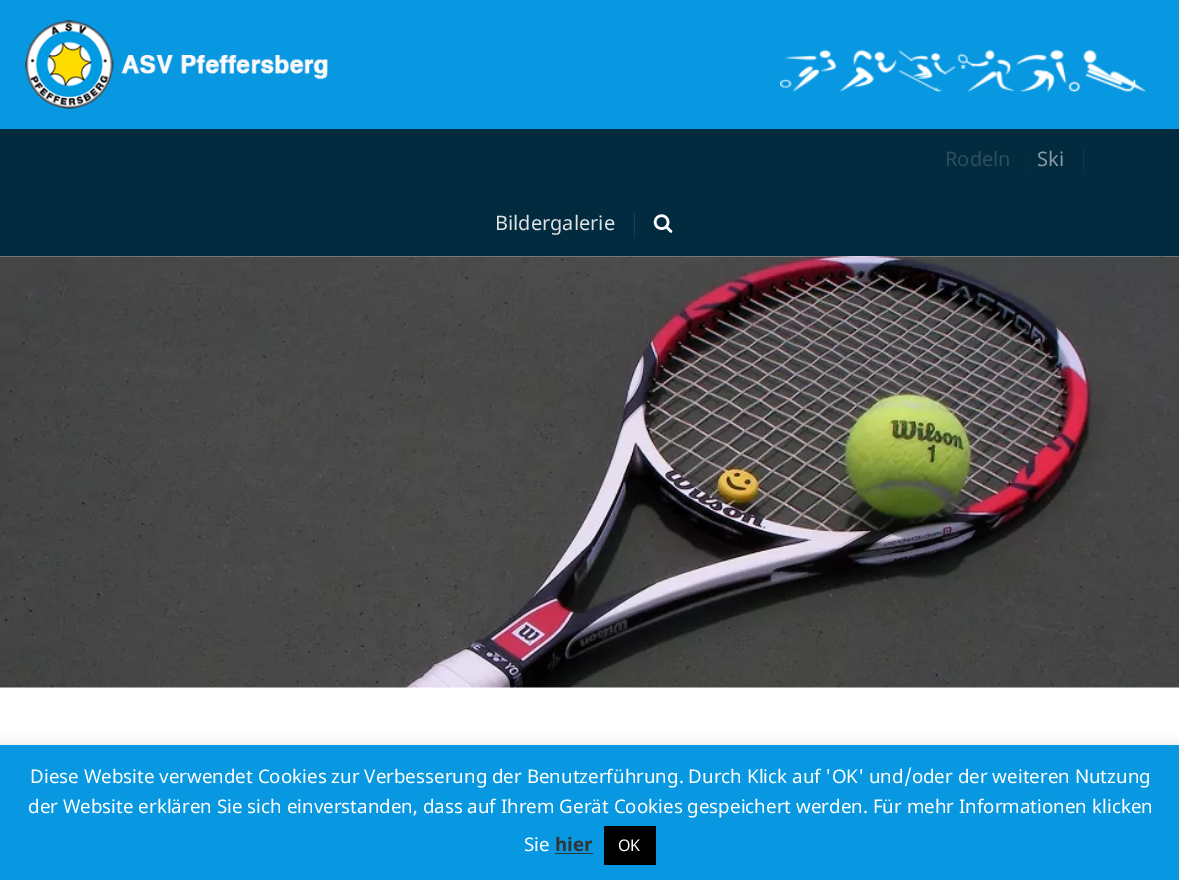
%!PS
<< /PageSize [1179 880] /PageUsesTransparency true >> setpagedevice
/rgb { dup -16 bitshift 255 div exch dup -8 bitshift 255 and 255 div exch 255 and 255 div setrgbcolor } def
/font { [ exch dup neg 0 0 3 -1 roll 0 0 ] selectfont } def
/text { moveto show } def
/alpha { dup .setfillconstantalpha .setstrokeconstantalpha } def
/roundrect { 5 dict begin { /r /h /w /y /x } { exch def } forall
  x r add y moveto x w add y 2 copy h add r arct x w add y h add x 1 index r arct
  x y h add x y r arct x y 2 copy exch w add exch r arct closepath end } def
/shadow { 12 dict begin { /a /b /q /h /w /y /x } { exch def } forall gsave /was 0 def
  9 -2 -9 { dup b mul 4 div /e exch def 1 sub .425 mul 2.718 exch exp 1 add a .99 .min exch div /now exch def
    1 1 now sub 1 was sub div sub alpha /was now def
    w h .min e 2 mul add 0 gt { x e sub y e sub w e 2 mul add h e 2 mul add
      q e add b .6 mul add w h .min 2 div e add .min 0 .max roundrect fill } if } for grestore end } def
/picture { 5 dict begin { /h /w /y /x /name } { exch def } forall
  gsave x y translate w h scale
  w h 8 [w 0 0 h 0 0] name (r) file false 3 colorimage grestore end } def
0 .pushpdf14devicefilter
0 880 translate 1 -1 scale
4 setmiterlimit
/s1 { /NotoSans-Regular 20 font 16#2C4E60 rgb } def
/s2 { /NotoSans-Regular 20 font 16#879BA4 rgb } def
/s3 { /NotoSans-Regular 20 font 16#DFE4E6 rgb } def
/s4 { /NotoSans-Regular 18.75 font 16#FFFFFF rgb } def
/s5 { /NotoSans-Bold 18.75 font 16#333333 rgb } def
/s6 { /NotoSans-Regular 16 font 16#FFFFFF rgb } def
16#FFFFFF rgb
0 0 1179 880 rectfill
16#0798E1 rgb
0 0 1179 129 rectfill
(pic1.raw) 25 20 303 89 picture
(pic2.raw) 780 49 367 44 picture
16#022B40 rgb
0 129 1179 127 rectfill
s1
(Rodeln) 945 166 text
16#062F43 rgb
1029 149 1 25 rectfill
s2
(Ski) 1037 166 text
16#0F364A rgb
1083 149 1 25 rectfill
s3
(Bildergalerie) 495 230 text
16#183E51 rgb
634 213 1 25 rectfill
(pic3.raw) 653 214 20 19 picture
(pic4.raw) 0 256 1179 432 picture
16#ACABAB rgb
0 744 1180 135 0 6 0.3 shadow
16#0798E1 rgb
0 745 1179 135 rectfill
s4
(Diese Website verwendet Cookies zur Verbesserung der Benutzerführung. Durch Klick auf 'OK' und/oder der weiteren Nutzung) 30 783 text
(der Website erklären Sie sich einverstanden, dass auf Ihrem Gerät Cookies gespeichert werden. Für mehr Informationen klicken) 28 813 text
(Sie) 524 851 text
s5
(hier) 555 851 text
555 853 38 1 rectfill
16#000000 rgb
604 826 52 39 rectfill
s6
(OK) 618 851 text
.poppdf14devicefilter showpage
